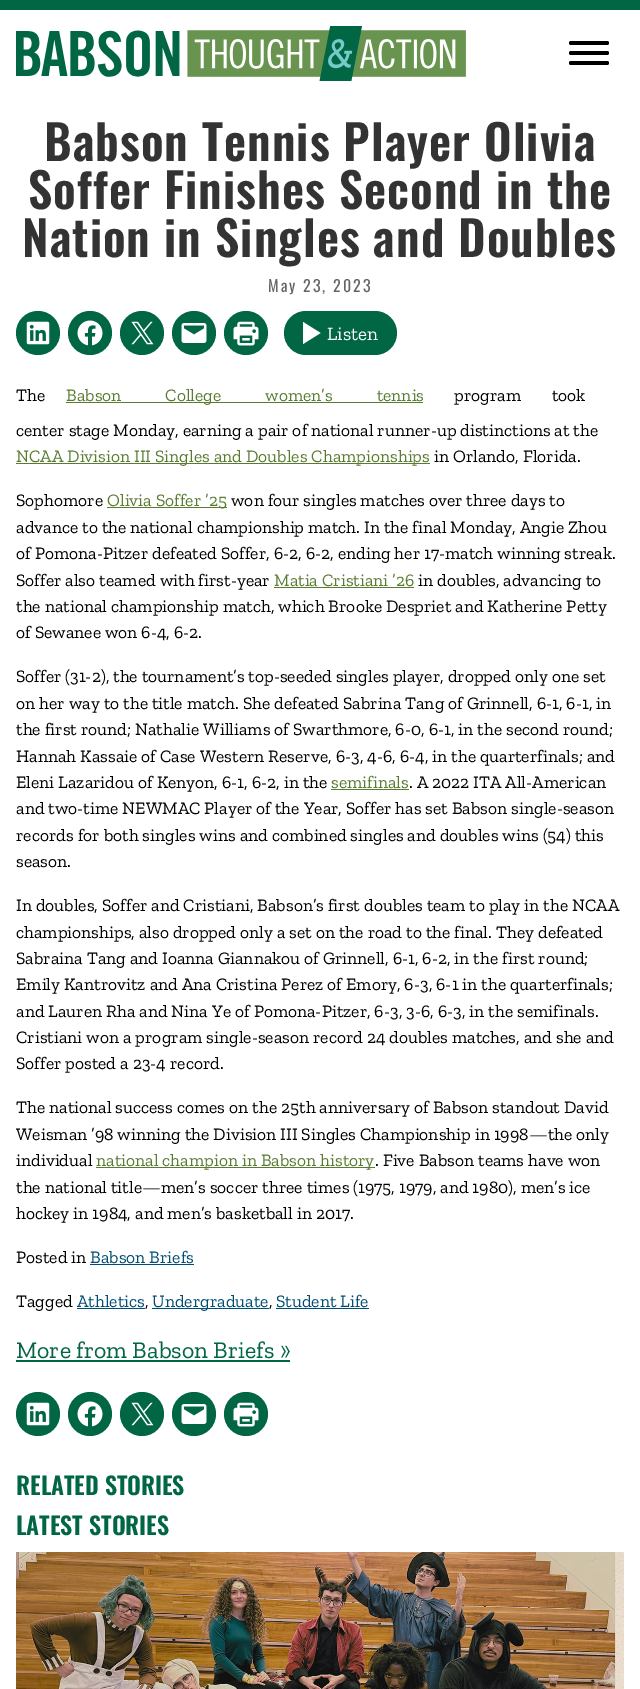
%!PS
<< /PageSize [640 1689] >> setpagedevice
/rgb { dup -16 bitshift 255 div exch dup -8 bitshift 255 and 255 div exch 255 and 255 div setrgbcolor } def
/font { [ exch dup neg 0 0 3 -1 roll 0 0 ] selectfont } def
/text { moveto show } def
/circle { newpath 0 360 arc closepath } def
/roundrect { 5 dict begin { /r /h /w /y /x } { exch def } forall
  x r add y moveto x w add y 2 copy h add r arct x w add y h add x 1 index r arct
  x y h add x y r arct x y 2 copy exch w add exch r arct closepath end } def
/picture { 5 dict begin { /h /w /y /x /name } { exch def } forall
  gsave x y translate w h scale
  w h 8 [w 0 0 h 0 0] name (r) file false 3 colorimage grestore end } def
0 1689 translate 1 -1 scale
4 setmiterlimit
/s1 { /ZillaSlab-Regular 19 font 16#FFFFFF rgb } def
/s2 { /ZillaSlab-Regular 17.6 font 16#000000 rgb } def
/s3 { /ZillaSlab-Regular 17.6 font 16#597C31 rgb } def
/s4 { /ZillaSlab-Regular 17.6 font 16#004E74 rgb } def
/s5 { /ZillaSlab-Regular 24 font 16#006644 rgb } def
/s6 { /Oswald-SemiBold 24 font 16#006644 rgb } def
16#FFFFFF rgb
0 0 640 1689 rectfill
16#006644 rgb
0 0 640 10 rectfill
(pic1.raw) 16 26 450 55 picture
16#000000 rgb
569 51 40 4 2 roundrect fill
569 41 40 4 2 roundrect fill
569 61 40 4 2 roundrect fill
/Oswald-SemiBold 48 font
16#333333 rgb
44 161 moveto 1 0 (Babson Tennis Player Olivia) ashow
28 209 moveto 1 0 (Soffer Finishes Second in the) ashow
22 257 moveto 1 0 (Nation in Singles and Doubles) ashow
/Oswald-Regular 16 font
16#666666 rgb
268 292 moveto 2 0 (May 23, 2023) ashow
16#006644 rgb
38 333 22 circle fill
(pic2.raw) 26 321 24 24 picture
90 333 22 circle fill
(pic3.raw) 77 320 26 26 picture
142 333 22 circle fill
(pic4.raw) 131 321 23 24 picture
194 333 22 circle fill
(pic5.raw) 181 323 26 20 picture
246 333 22 circle fill
(pic6.raw) 233 321 26 25 picture
284 311 113 44 22 roundrect fill
16#FFFFFF rgb
320.5 333 moveto 303 344 lineto 303 322 lineto closepath fill
s1
(Listen) 327 340 text
s2
(The) 16 401 text
16#597C31 rgb
66 402 357 1 rectfill
66 401 moveto 40 0 32 (Babson College women’s tennis) widthshow
16#000000 rgb
454 401 moveto 27 0 32 (program took) widthshow
(center stage Monday, earning a pair of national runner-up distinctions at the) 16 436 text
16#597C31 rgb
16 463 414 1 rectfill
(NCAA Division III Singles and Doubles Championships) 16 462 text
s2
(in Orlando, Florida.) 434 462 text
(Sophomore) 16 506 text
16#597C31 rgb
107 507 120 1 rectfill
(Olivia Soffer ’25) 107 506 text
s2
(won four singles matches over three days to) 231 506 text
(advance to the national championship match. In the final Monday, Angie Zhou) 16 533 text
(of Pomona-Pitzer defeated Soffer, 6-2, 6-2, ending her 17-match winning streak.) 16 559 text
(Soffer also teamed with first-year) 16 586 text
s3
(Matia Cristiani ’26) 274 586 text
274 587 140 1 rectfill
s2
(in doubles, advancing to) 418 586 text
(the national championship match, which Brooke Despriet and Katherine Petty) 16 612 text
(of Sewanee won 6-4, 6-2.) 16 638 text
(Soffer \(31-2\), the tournament’s top-seeded singles player, dropped only one set) 16 682 text
(on her way to the title match. She defeated Sabrina Tang of Grinnell, 6-1, 6-1, in) 16 709 text
(the first round; Nathalie Williams of Swarthmore, 6-0, 6-1, in the second round;) 16 735 text
(Hannah Kassaie of Case Western Reserve, 6-3, 4-6, 6-4, in the quarterfinals; and) 16 762 text
(Eleni Lazaridou of Kenyon, 6-1, 6-2, in the) 16 788 text
s3
(semifinals) 331 788 text
331 789 78 1 rectfill
s2
(. A 2022 ITA All-American) 409 788 text
(and two-time NEWMAC Player of the Year, Soffer has set Babson single-season) 16 814 text
(records for both singles wins and combined singles and doubles wins \(54\) this) 16 841 text
(season.) 16 867 text
(In doubles, Soffer and Cristiani, Babson’s first doubles team to play in the NCAA) 16 911 text
(championships, also dropped only a set on the road to the final. They defeated) 16 938 text
(Sabraina Tang and Ioanna Giannakou of Grinnell, 6-1, 6-2, in the first round;) 16 964 text
(Emily Kantrovitz and Ana Cristina Perez of Emory, 6-3, 6-1 in the quarterfinals;) 16 990 text
(and Lauren Rha and Nina Ye of Pomona-Pitzer, 6-3, 3-6, 6-3, in the semifinals.) 16 1017 text
(Cristiani won a program single-season record 24 doubles matches, and she and) 16 1043 text
(Soffer posted a 23-4 record.) 16 1069 text
(The national success comes on the 25th anniversary of Babson standout David) 16 1113 text
(Weisman ’98 winning the Division III Singles Championship in 1998—the only) 16 1140 text
(individual) 16 1166 text
16#597C31 rgb
96 1167 279 1 rectfill
(national champion in Babson history) 96 1166 text
s2
(. Five Babson teams have won) 375 1166 text
(the national title—men’s soccer three times \(1975, 1979, and 1980\), men’s ice) 16 1193 text
(hockey in 1984, and men’s basketball in 2017.) 16 1219 text
(Posted in) 16 1263 text
s4
(Babson Briefs) 90 1263 text
90 1264 104 1 rectfill
s2
(Tagged) 16 1307 text
s4
(Athletics) 77 1307 text
77 1308 68 1 rectfill
s2
(,) 145 1307 text
16#004E74 rgb
152 1308 117 1 rectfill
(Undergraduate) 152 1307 text
s2
(,) 269 1307 text
s4
(Student Life) 276 1307 text
276 1308 93 1 rectfill
s5
(More from Babson Briefs ») 16 1358 text
16 1360 274 2 rectfill
38 1414 22 circle fill
(pic2.raw) 26 1402 24 24 picture
90 1414 22 circle fill
(pic3.raw) 77 1401 26 26 picture
142 1414 22 circle fill
(pic4.raw) 131 1402 23 24 picture
194 1414 22 circle fill
(pic5.raw) 181 1404 26 20 picture
246 1414 22 circle fill
(pic6.raw) 233 1402 26 25 picture
s6
(RELATED STORIES) 16 1495 text
(LATEST STORIES) 16 1535 text
(pic7.raw) 16 1552 608 137 picture
showpage
